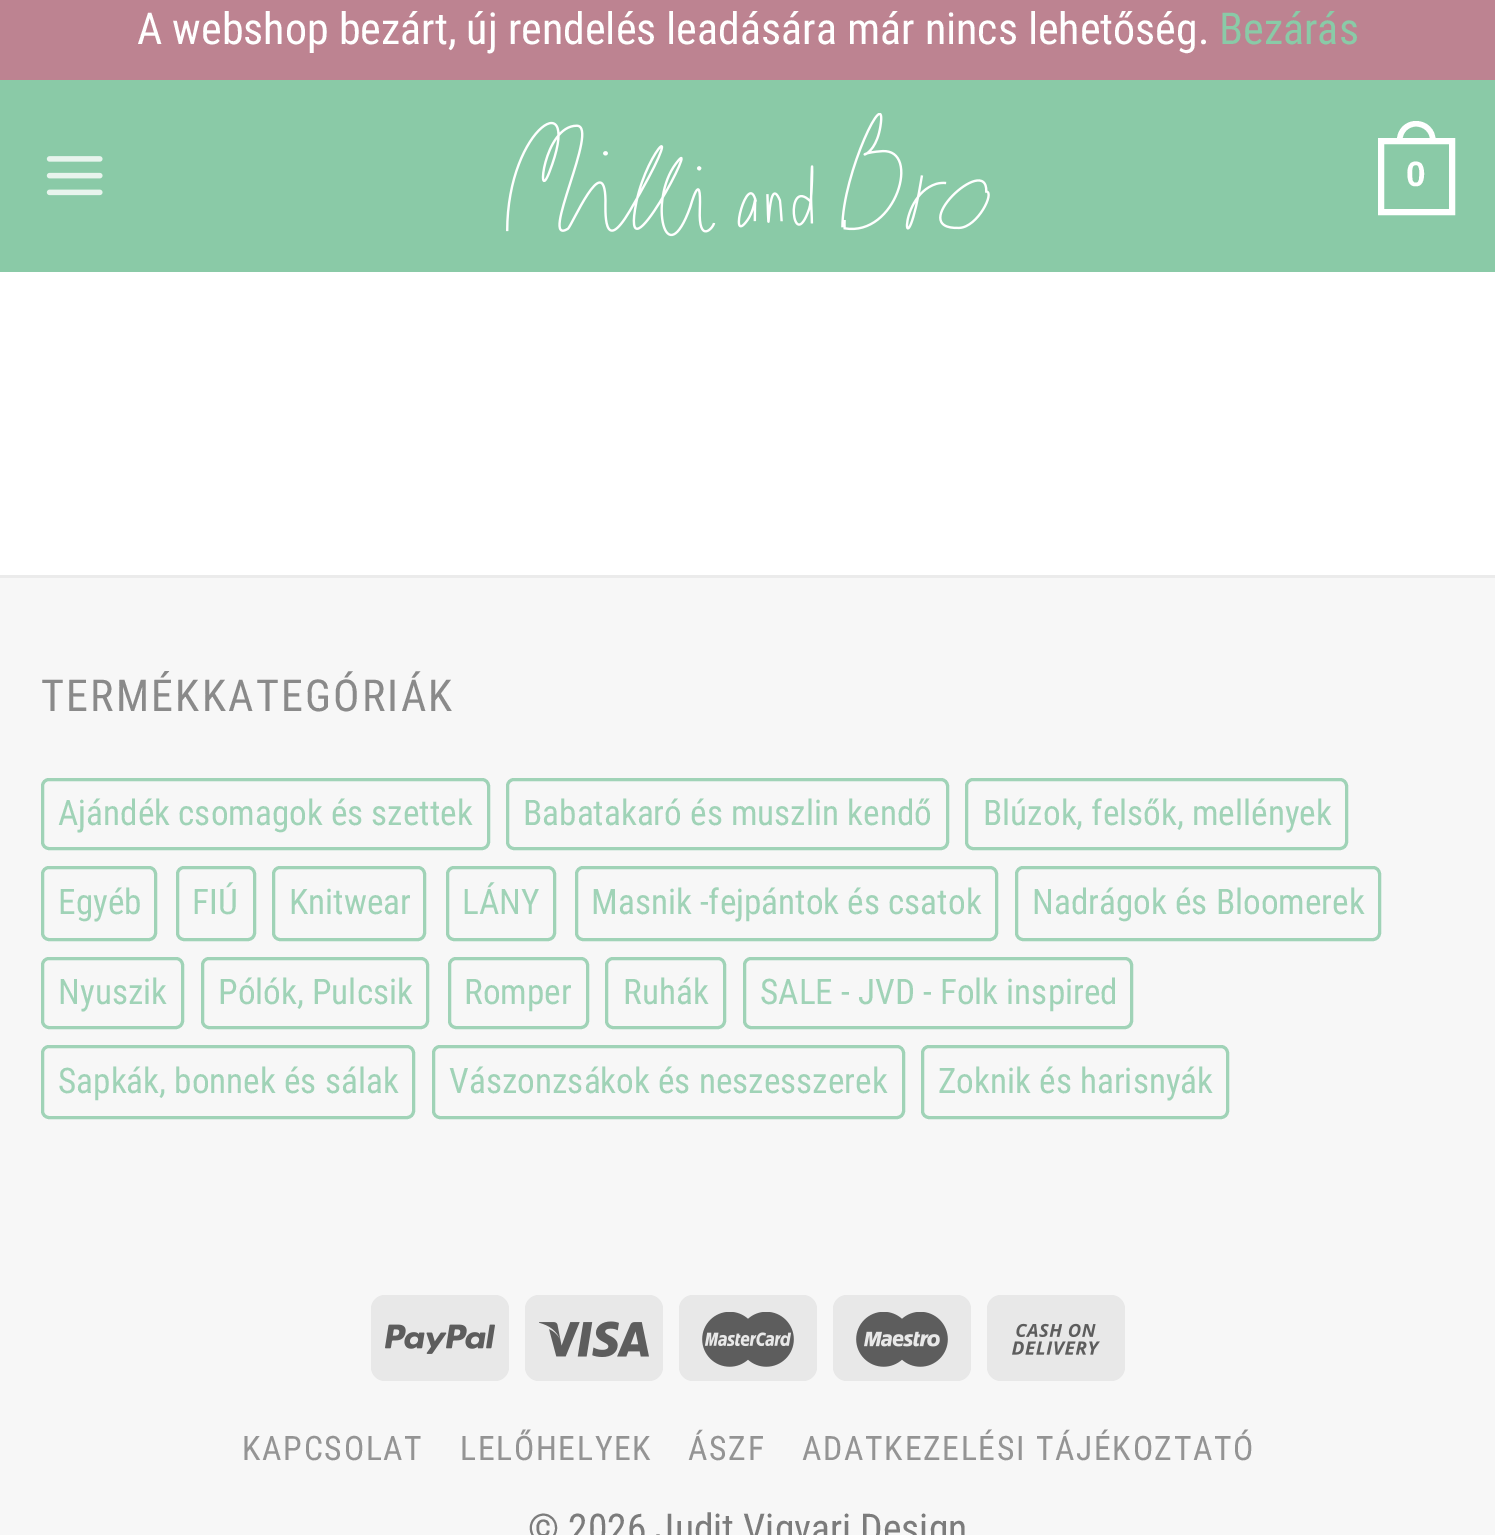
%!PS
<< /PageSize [1495 1535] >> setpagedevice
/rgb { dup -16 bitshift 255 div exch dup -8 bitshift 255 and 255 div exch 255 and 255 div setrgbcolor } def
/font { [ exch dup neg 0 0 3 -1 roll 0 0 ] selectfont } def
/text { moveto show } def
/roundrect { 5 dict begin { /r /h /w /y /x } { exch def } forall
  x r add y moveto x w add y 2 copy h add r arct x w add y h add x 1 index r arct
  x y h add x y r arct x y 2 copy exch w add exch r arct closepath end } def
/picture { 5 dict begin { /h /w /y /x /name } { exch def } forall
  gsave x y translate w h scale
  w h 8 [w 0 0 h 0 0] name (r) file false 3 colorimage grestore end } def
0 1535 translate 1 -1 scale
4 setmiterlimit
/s1 { /RobotoCondensed-Regular 44 font 16#FFFFFF rgb } def
/s2 { /RobotoCondensed-Regular 44 font 16#8ACAA7 rgb } def
/s3 { /LiberationSans-Bold 35.25 font 16#FFFFFF rgb } def
/s4 { /RobotoCondensed-Regular 35.25 font 16#A0D3B7 rgb } def
/s5 { /RobotoCondensed-Regular 39.6 font 16#7C7C7C rgb } def
16#BD8391 rgb
0 0 1495 1535 rectfill
s1
(A webshop bezárt, új rendelés leadására már nincs lehetőség.) 137 44 text
s2
(Bezárás) 1219 44 text
16#FFFFFF rgb
0 272 1495 303 rectfill
16#8ACAA7 rgb
0 80 1495 192 rectfill
(pic1.raw) 46 156 57 40 picture
(pic2.raw) 506 113 484 124 picture
16#FFFFFF rgb
6 setlinewidth
1381 141 71 71 rectstroke
1416 121 moveto 1427 121 1435.5 129.5 1435.5 140 curveto 1435.5 143 lineto 1397 143 lineto 1397 140 lineto 1397 129.5 1405.5 121 1416 121 curveto closepath 1416 126.5 moveto 1424 126.5 1430 132.5 1430 140 curveto 1430 143 lineto 1402.5 143 lineto 1402.5 140 lineto 1402.5 132.5 1408.5 126.5 1416 126.5 curveto closepath eofill
s3
(0) 1406 186 text
16#F7F7F7 rgb
0 578 1495 957 rectfill
16#EBEBEB rgb
0 575 1495 3 rectfill
/RobotoCondensed-Regular 44 font
16#8A8A8A rgb
41 711 moveto 2.25 0 (TERMÉKKATEGÓRIÁK) ashow
16#A0D3B7 rgb
3 setlinewidth
42.5 779.5 446 69 6.5 roundrect stroke
s4
(Ajándék csomagok és szettek) 58 825 text
507.5 779.5 440 69 6.5 roundrect stroke
(Babatakaró és muszlin kendő) 523 825 text
966.5 779.5 380 69 6.5 roundrect stroke
(Blúzok, felsők, mellények) 983 825 text
42.5 867.5 113 72 6.5 roundrect stroke
(Egyéb) 58 914 text
177.5 867.5 77 72 6.5 roundrect stroke
(FIÚ) 192 914 text
273.5 867.5 151 72 6.5 roundrect stroke
(Knitwear) 289 914 text
447.5 867.5 107 72 6.5 roundrect stroke
(LÁNY) 462 914 text
576.5 867.5 420 72 6.5 roundrect stroke
(Masnik -fejpántok és csatok) 591 914 text
1016.5 867.5 363 72 6.5 roundrect stroke
(Nadrágok és Bloomerek) 1032 914 text
42.5 958.5 140 69 6.5 roundrect stroke
(Nyuszik) 58 1004 text
202.5 958.5 225 69 6.5 roundrect stroke
(Pólók, Pulcsik) 218 1004 text
449.5 958.5 138 69 6.5 roundrect stroke
(Romper) 464 1004 text
606.5 958.5 118 69 6.5 roundrect stroke
(Ruhák) 623 1004 text
744.5 958.5 387 69 6.5 roundrect stroke
(SALE - JVD - Folk inspired) 760 1004 text
42.5 1046.5 371 71 6.5 roundrect stroke
(Sapkák, bonnek és sálak) 58 1093 text
433.5 1046.5 470 71 6.5 roundrect stroke
(Vászonzsákok és neszesszerek) 449 1093 text
922.5 1046.5 305 71 6.5 roundrect stroke
(Zoknik és harisnyák) 938 1093 text
16#E8E8E8 rgb
371 1295 138 86 14 roundrect fill
(pic3.raw) 385 1324 110 30 picture
525 1295 138 86 14 roundrect fill
(pic4.raw) 539 1321 110 36 picture
679 1295 138 86 14 roundrect fill
(pic5.raw) 702 1312 92 55 picture
833 1295 138 86 14 roundrect fill
(pic6.raw) 856 1312 92 55 picture
987 1295 138 86 14 roundrect fill
(pic7.raw) 1012 1323 88 32 picture
/RobotoCondensed-Regular 33.7 font
16#949494 rgb
242 1460 moveto 1.7 0 (KAPCSOLAT) ashow
460 1460 moveto 1.7 0 (LELŐHELYEK) ashow
688 1460 moveto 1.7 0 (ÁSZF) ashow
802 1460 moveto 1.7 0 (ADATKEZELÉSI TÁJÉKOZTATÓ) ashow
s5
(© 2026 Judit Vigvari Design) 528 1542 text
showpage
